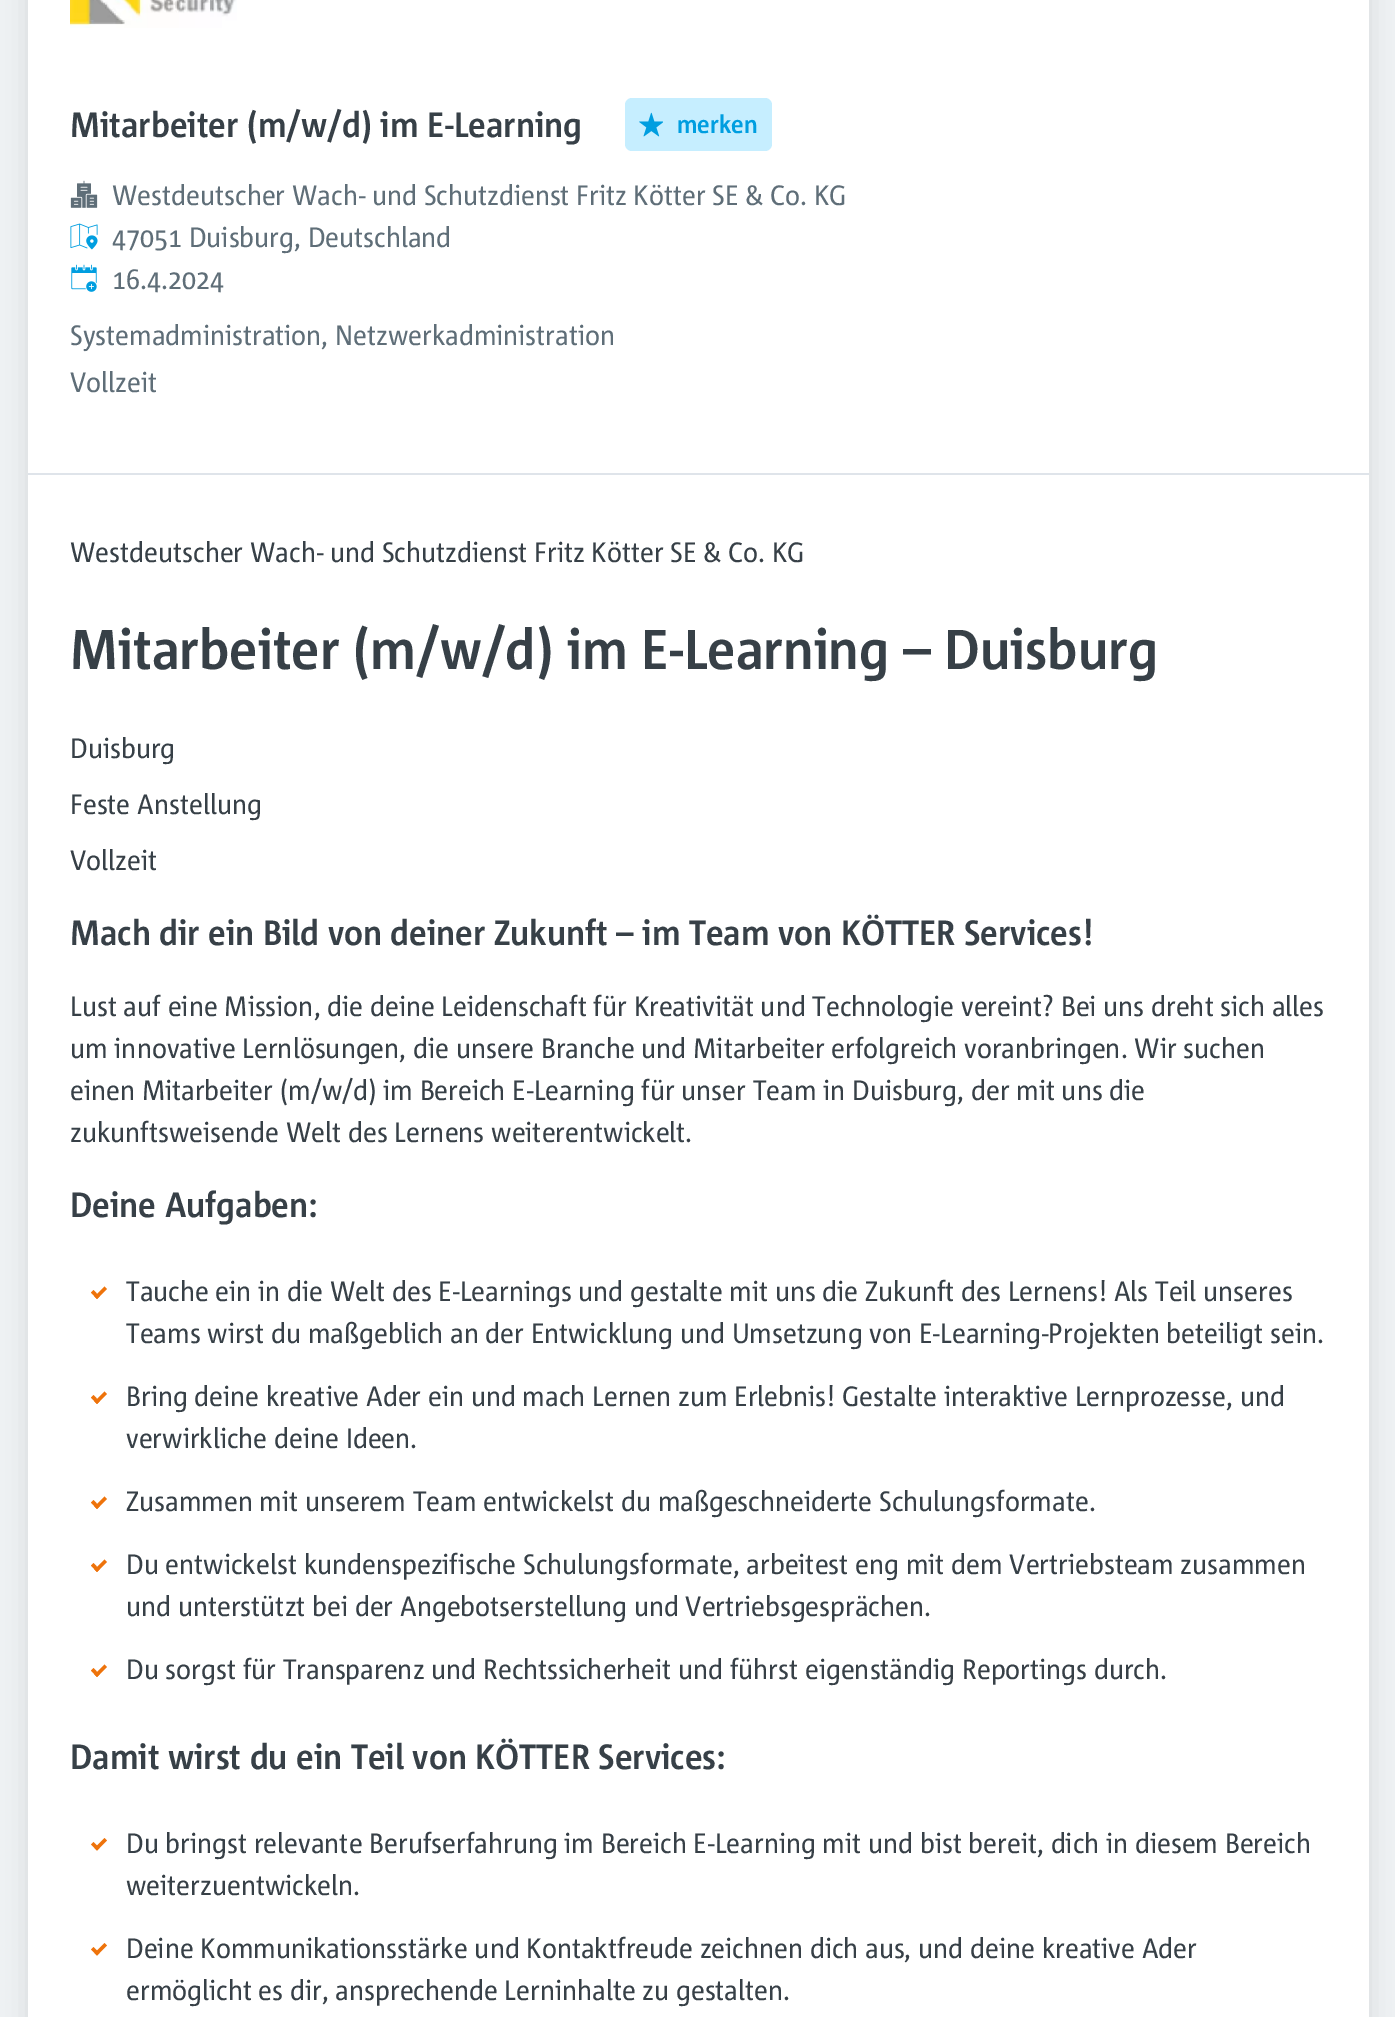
%!PS
<< /PageSize [1395 2017] /PageUsesTransparency true >> setpagedevice
/rgb { dup -16 bitshift 255 div exch dup -8 bitshift 255 and 255 div exch 255 and 255 div setrgbcolor } def
/font { [ exch dup neg 0 0 3 -1 roll 0 0 ] selectfont } def
/text { moveto show } def
/alpha { dup .setfillconstantalpha .setstrokeconstantalpha } def
/roundrect { 5 dict begin { /r /h /w /y /x } { exch def } forall
  x r add y moveto x w add y 2 copy h add r arct x w add y h add x 1 index r arct
  x y h add x y r arct x y 2 copy exch w add exch r arct closepath end } def
/shadow { 12 dict begin { /a /b /q /h /w /y /x } { exch def } forall gsave /was 0 def
  9 -2 -9 { dup b mul 4 div /e exch def 1 sub .425 mul 2.718 exch exp 1 add a .99 .min exch div /now exch def
    1 1 now sub 1 was sub div sub alpha /was now def
    w h .min e 2 mul add 0 gt { x e sub y e sub w e 2 mul add h e 2 mul add
      q e add b .6 mul add w h .min 2 div e add .min 0 .max roundrect fill } if } for grestore end } def
/picture { 5 dict begin { /h /w /y /x /name } { exch def } forall
  gsave x y translate w h scale
  w h 8 [w 0 0 h 0 0] name (r) file false 3 colorimage grestore end } def
0 .pushpdf14devicefilter
0 2017 translate 1 -1 scale
4 setmiterlimit
/s1 { /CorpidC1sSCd-Bold 35 font 16#374047 rgb } def
/s2 { /CorpidC1sSCd-Bold 25 font 16#009EE0 rgb } def
/s3 { /CorpidC1sSCd-Regular 28 font 16#5F6E78 rgb } def
/s4 { /CorpidC1sSCd-Regular 28 font 16#374047 rgb } def
/s5 { /CorpidC1sSCd-Bold 56 font 16#374047 rgb } def
16#EFF2F4 rgb
0 0 1395 2017 rectfill
16#000000 rgb
28 -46 1341 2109 7 13 0.1 shadow
16#FFFFFF rgb
28 0 1341 2017 rectfill
16#DFE4EA rgb
28 473 1341 2 rectfill
(pic1.raw) 70 0 167 28 picture
s1
(Mitarbeiter \(m/w/d\) im E-Learning) 70 137 text
16#C6EEFF rgb
625 98 147 53 7 roundrect fill
(pic2.raw) 639 112 24 25 picture
s2
(merken) 677 133 text
(pic3.raw) 70 180 28 28 picture
s3
(Westdeutscher Wach- und Schutzdienst Fritz Kötter SE & Co. KG) 112 205 text
(pic4.raw) 70 223 28 27 picture
(47051 Duisburg, Deutschland) 112 247 text
(pic5.raw) 71 264 26 28 picture
(16.4.2024) 112 289 text
(Systemadministration, Netzwerkadministration) 70 345 text
(Vollzeit) 70 392 text
s4
(Westdeutscher Wach- und Schutzdienst Fritz Kötter SE & Co. KG) 70 562 text
s5
(Mitarbeiter \(m/w/d\) im E-Learning – Duisburg) 70 669 text
s4
(Duisburg) 70 758 text
(Feste Anstellung) 70 814 text
(Vollzeit) 70 870 text
s1
(Mach dir ein Bild von deiner Zukunft – im Team von KÖTTER Services!) 70 945 text
s4
(Lust auf eine Mission, die deine Leidenschaft für Kreativität und Technologie vereint? Bei uns dreht sich alles) 70 1016 text
(um innovative Lernlösungen, die unsere Branche und Mitarbeiter erfolgreich voranbringen. Wir suchen) 70 1058 text
(einen Mitarbeiter \(m/w/d\) im Bereich E-Learning für unser Team in Duisburg, der mit uns die) 70 1100 text
(zukunftsweisende Welt des Lernens weiterentwickelt.) 70 1142 text
s1
(Deine Aufgaben:) 70 1217 text
16#EE730B rgb
104.5 1286.5 moveto 107 1289 lineto 97 1299 lineto 94.5 1296.5 lineto closepath fill
93.5 1290 moveto 99.5 1296.5 lineto 97 1299 lineto 91 1292.5 lineto closepath fill
s4
(Tauche ein in die Welt des E-Learnings und gestalte mit uns die Zukunft des Lernens! Als Teil unseres) 126 1301 text
(Teams wirst du maßgeblich an der Entwicklung und Umsetzung von E-Learning-Projekten beteiligt sein.) 126 1343 text
16#EE730B rgb
104.5 1391.5 moveto 107 1394 lineto 97 1404 lineto 94.5 1401.5 lineto closepath fill
93.5 1395 moveto 99.5 1401.5 lineto 97 1404 lineto 91 1397.5 lineto closepath fill
s4
(Bring deine kreative Ader ein und mach Lernen zum Erlebnis! Gestalte interaktive Lernprozesse, und) 126 1406 text
(verwirkliche deine Ideen.) 126 1448 text
16#EE730B rgb
104.5 1496.5 moveto 107 1499 lineto 97 1509 lineto 94.5 1506.5 lineto closepath fill
93.5 1500 moveto 99.5 1506.5 lineto 97 1509 lineto 91 1502.5 lineto closepath fill
s4
(Zusammen mit unserem Team entwickelst du maßgeschneiderte Schulungsformate.) 126 1511 text
16#EE730B rgb
104.5 1559.5 moveto 107 1562 lineto 97 1572 lineto 94.5 1569.5 lineto closepath fill
93.5 1563 moveto 99.5 1569.5 lineto 97 1572 lineto 91 1565.5 lineto closepath fill
s4
(Du entwickelst kundenspezifische Schulungsformate, arbeitest eng mit dem Vertriebsteam zusammen) 126 1574 text
(und unterstützt bei der Angebotserstellung und Vertriebsgesprächen.) 126 1616 text
16#EE730B rgb
104.5 1664.5 moveto 107 1667 lineto 97 1677 lineto 94.5 1674.5 lineto closepath fill
93.5 1668 moveto 99.5 1674.5 lineto 97 1677 lineto 91 1670.5 lineto closepath fill
s4
(Du sorgst für Transparenz und Rechtssicherheit und führst eigenständig Reportings durch.) 126 1679 text
s1
(Damit wirst du ein Teil von KÖTTER Services:) 70 1769 text
16#EE730B rgb
104.5 1838 moveto 107 1840.5 lineto 97 1850.5 lineto 94.5 1848 lineto closepath fill
93.5 1842 moveto 99.5 1848 lineto 97 1850.5 lineto 91 1844.5 lineto closepath fill
s4
(Du bringst relevante Berufserfahrung im Bereich E-Learning mit und bist bereit, dich in diesem Bereich) 126 1853 text
(weiterzuentwickeln.) 126 1895 text
16#EE730B rgb
104.5 1943 moveto 107 1945.5 lineto 97 1955.5 lineto 94.5 1953 lineto closepath fill
93.5 1947 moveto 99.5 1953 lineto 97 1955.5 lineto 91 1949.5 lineto closepath fill
s4
(Deine Kommunikationsstärke und Kontaktfreude zeichnen dich aus, und deine kreative Ader) 126 1958 text
(ermöglicht es dir, ansprechende Lerninhalte zu gestalten.) 126 2000 text
.poppdf14devicefilter showpage
